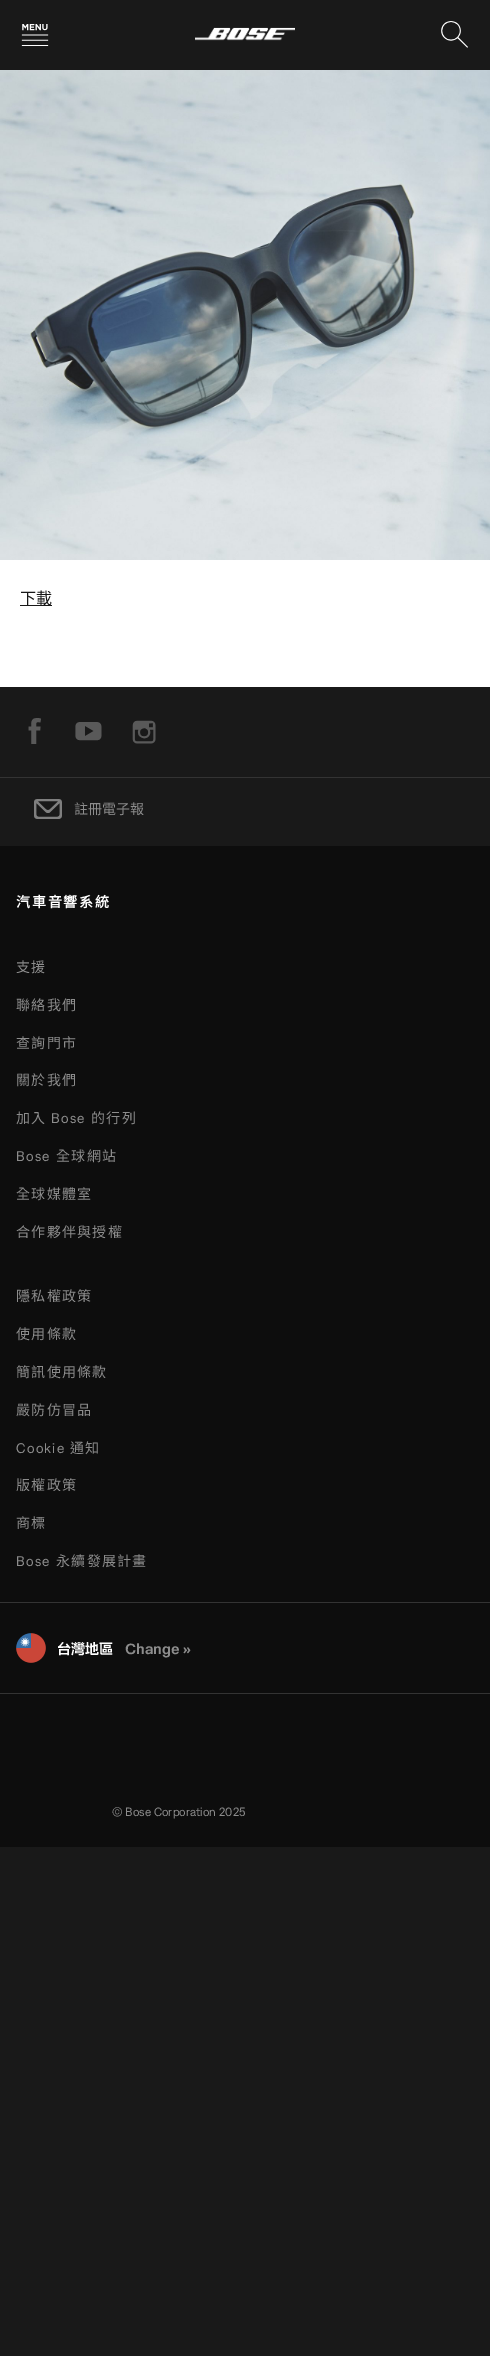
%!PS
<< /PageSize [490 2356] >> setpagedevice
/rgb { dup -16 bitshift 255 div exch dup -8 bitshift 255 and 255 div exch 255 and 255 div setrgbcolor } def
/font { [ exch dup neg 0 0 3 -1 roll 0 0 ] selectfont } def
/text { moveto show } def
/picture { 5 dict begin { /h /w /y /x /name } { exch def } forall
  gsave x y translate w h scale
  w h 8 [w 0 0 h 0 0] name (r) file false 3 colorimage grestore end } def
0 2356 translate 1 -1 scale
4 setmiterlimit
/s1 { /NotoSansCJKTC-Regular 16 font 16#181818 rgb } def
/s2 { /NotoSansCJKTC-Regular 14 font 16#8C8C8C rgb } def
/s3 { /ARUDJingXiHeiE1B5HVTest-Black 14 font 16#FFFFFF rgb } def
/s4 { /ARUDJingXiHeiE1B5HVTest-Black 14 font 16#8C8C8C rgb } def
/s5 { /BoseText-Regular 12 font 16#8C8C8C rgb } def
16#191919 rgb
0 0 490 2356 rectfill
(pic1.raw) 21 24 28 22 picture
(pic2.raw) 195 27 100 14 picture
(pic3.raw) 441 21 27 27 picture
16#FFFFFF rgb
0 560 490 127 rectfill
(pic4.raw) 0 70 490 490 picture
16#181818 rgb
20 605 32 1 rectfill
s1
(下載) 20 604 text
16#0D0D0D rgb
0 846 490 1001 rectfill
16#333333 rgb
0 777 490 1 rectfill
(pic5.raw) 28 718 13 26 picture
(pic6.raw) 75 722 27 19 picture
(pic7.raw) 132 720 24 24 picture
(pic8.raw) 34 799 28 20 picture
s2
(註冊電子報) 74 814 text
16#333333 rgb
0 1602 490 1 rectfill
/NotoSansCJKTC-Bold 14 font
16#FFFFFF rgb
16 907 moveto 1.75 0 (汽車音響系統) ashow
/NotoSansCJKTC-Regular 14 font
16#8C8C8C rgb
16 972 moveto 1.25 0 (支援) ashow
16 1010 moveto 1.25 0 (聯絡我們) ashow
16 1048 moveto 1.25 0 (查詢門市) ashow
16 1085 moveto 1.25 0 (關於我們) ashow
16 1123 moveto 1.25 0 (加入) ashow
/BoseText-Regular 14 font
51 1123 moveto 1.25 0 (Bose) ashow
/NotoSansCJKTC-Regular 14 font
91 1123 moveto 1.25 0 (的行列) ashow
/BoseText-Regular 14 font
16 1161 moveto 1.25 0 (Bose) ashow
/NotoSansCJKTC-Regular 14 font
56 1161 moveto 1.25 0 (全球網站) ashow
16 1199 moveto 1.25 0 (全球媒體室) ashow
16 1237 moveto 1.25 0 (合作夥伴與授權) ashow
16 1301 moveto 1.25 0 (隱私權政策) ashow
16 1339 moveto 1.25 0 (使用條款) ashow
16 1377 moveto 1.25 0 (簡訊使用條款) ashow
16 1415 moveto 1.25 0 (嚴防仿冒品) ashow
/BoseText-Regular 14 font
16 1453 moveto 1.25 0 (Cookie) ashow
/NotoSansCJKTC-Regular 14 font
70 1453 moveto 1.25 0 (通知) ashow
16 1490 moveto 1.25 0 (版權政策) ashow
16 1528 moveto 1.25 0 (商標) ashow
/BoseText-Regular 14 font
16 1566 moveto 1.25 0 (Bose) ashow
/NotoSansCJKTC-Regular 14 font
56 1566 moveto 1.25 0 (永續發展計畫) ashow
16#333333 rgb
0 1693 490 1 rectfill
(pic9.raw) 16 1633 30 30 picture
s3
(台灣地區) 57 1654 text
s4
(Change ») 125 1654 text
s5
(© Bose Corporation 2025) 112 1816 text
showpage
